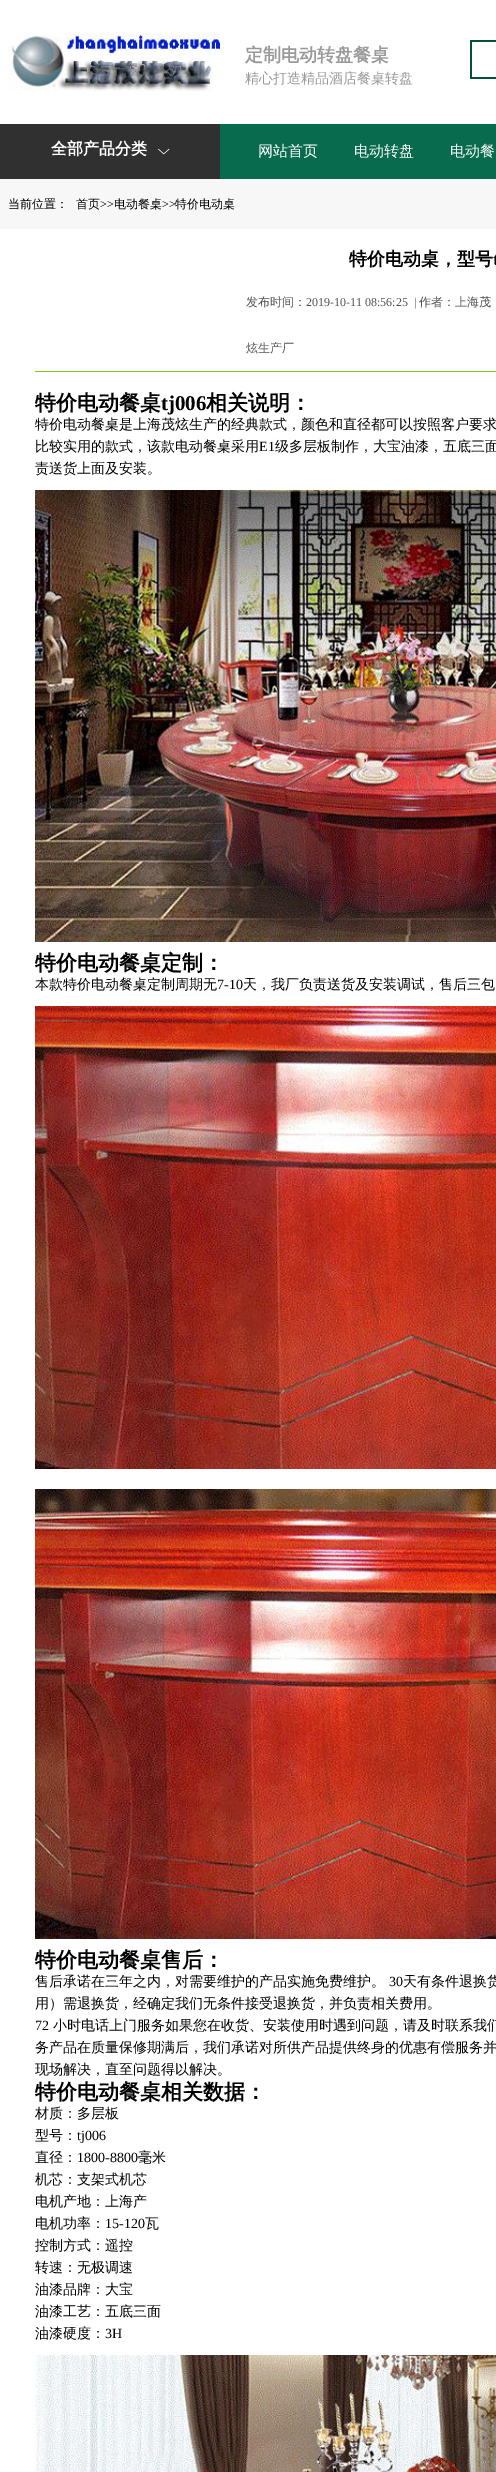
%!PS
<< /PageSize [496 2472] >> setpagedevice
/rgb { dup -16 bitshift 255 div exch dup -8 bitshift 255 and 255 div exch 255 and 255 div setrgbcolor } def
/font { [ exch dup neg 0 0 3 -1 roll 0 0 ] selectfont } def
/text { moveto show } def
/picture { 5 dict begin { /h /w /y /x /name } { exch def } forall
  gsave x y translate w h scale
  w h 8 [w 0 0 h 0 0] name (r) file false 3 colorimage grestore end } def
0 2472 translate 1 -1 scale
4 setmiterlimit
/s1 { /WenQuanYiZenHei-Bold 18 font 16#9A9A9A rgb } def
/s2 { /WenQuanYiZenHei-Medium 14 font 16#9A9A9A rgb } def
/s3 { /WenQuanYiZenHei-Bold 16 font 16#FFFFFF rgb } def
/s4 { /WenQuanYiZenHei-Medium 15 font 16#FFFFFF rgb } def
/s5 { /WenQuanYiZenHei-Medium 12 font 16#000000 rgb } def
/s6 { /LiberationSerif-Regular 12 font 16#000000 rgb } def
/s7 { /WenQuanYiZenHei-Bold 18 font 16#000000 rgb } def
/s8 { /LiberationSerif-Bold 18 font 16#000000 rgb } def
/s9 { /WenQuanYiZenHei-Medium 12 font 16#515151 rgb } def
/s10 { /LiberationSerif-Regular 12 font 16#515151 rgb } def
/s11 { /WenQuanYiZenHei-Bold 21 font 16#000000 rgb } def
/s12 { /LiberationSerif-Bold 21 font 16#000000 rgb } def
/s13 { /WenQuanYiZenHei-Medium 14 font 16#000000 rgb } def
/s14 { /LiberationSerif-Regular 14 font 16#000000 rgb } def
16#FFFFFF rgb
0 0 496 2472 rectfill
(pic1.raw) 8 33 212 58 picture
s1
(定制电动转盘餐桌) 245 61 text
s2
(精心打造精品酒店餐桌转盘) 245 83 text
16#064F38 rgb
470 40 26 2 rectfill
470 77 26 2 rectfill
470 40 2 39 rectfill
16#096B4D rgb
220 124 276 55 rectfill
16#303030 rgb
0 124 220 55 rectfill
s3
(全部产品分类) 51 154 text
(pic2.raw) 158 148 12 7 picture
s4
(网站首页) 258 156 text
(电动转盘) 354 156 text
(电动餐) 450 156 text
16#F7F7F7 rgb
0 179 496 50 rectfill
s5
(当前位置：) 8 208 text
(首页) 76 208 text
s6
(>>) 100 208 text
s5
(电动餐桌) 114 208 text
s6
(>>) 162 208 text
s5
(特价电动桌) 175 208 text
16#84C225 rgb
35 371 461 1 rectfill
s7
(特价电动桌，型号) 349 265 text
s8
(t) 493 265 text
s9
(发布时间：) 246 306 text
s10
(2019-10-11 08:56:25  |) 306 306 text
s9
(作者：上海茂) 419 306 text
(炫生产厂) 246 352 text
s11
(特价电动餐桌) 35 410 text
s12
(tj006) 161 410 text
s11
(相关说明：) 206 410 text
s13
(特价电动餐桌是上海茂炫生产的经典款式，颜色和直径都可以按照客户要求) 35 429 text
(比较实用的款式，该款电动餐桌采用) 35 451 text
s14
(E1) 259 451 text
s13
(级多层板制作，大宝油漆，五底三面) 275 451 text
(责送货上面及安装。) 35 473 text
(pic3.raw) 35 490 461 452 picture
s11
(特价电动餐桌定制：) 35 970 text
s13
(本款特价电动餐桌定制周期无) 35 989 text
s14
(7-10) 217 989 text
s13
(天，我厂负责送货及安装调试，售后三包) 243 989 text
(pic4.raw) 35 1006 461 463 picture
(pic5.raw) 35 1489 461 450 picture
s11
(特价电动餐桌售后：) 35 1967 text
s13
(售后承诺在三年之内，对需要维护的产品实施免费维护。) 35 1986 text
s14
(30) 389 1986 text
s13
(天有条件退换货) 403 1986 text
(用）需退换货，经确定我们无条件接受退换货，并负责相关费用。) 35 2008 text
s14
(72) 35 2030 text
s13
(小时电话上门服务如果您在收货、安装使用时遇到问题，请及时联系我们) 53 2030 text
(务产品在质量保修期满后，我们承诺对所供产品提供终身的优惠有偿服务并) 35 2052 text
(现场解决，直至问题得以解决。) 35 2074 text
s11
(特价电动餐桌相关数据：) 35 2099 text
s13
(材质：多层板) 35 2118 text
(型号：) 35 2140 text
s14
(tj006) 77 2140 text
s13
(直径：) 35 2162 text
s14
(1800-8800) 77 2162 text
s13
(毫米) 138 2162 text
(机芯：支架式机芯) 35 2184 text
(电机产地：上海产) 35 2206 text
(电机功率：) 35 2228 text
s14
(15-120) 105 2228 text
s13
(瓦) 145 2228 text
(控制方式：遥控) 35 2250 text
(转速：无极调速) 35 2272 text
(油漆品牌：大宝) 35 2294 text
(油漆工艺：五底三面) 35 2316 text
(油漆硬度：) 35 2338 text
s14
(3H) 105 2338 text
(pic6.raw) 35 2355 461 117 picture
showpage
